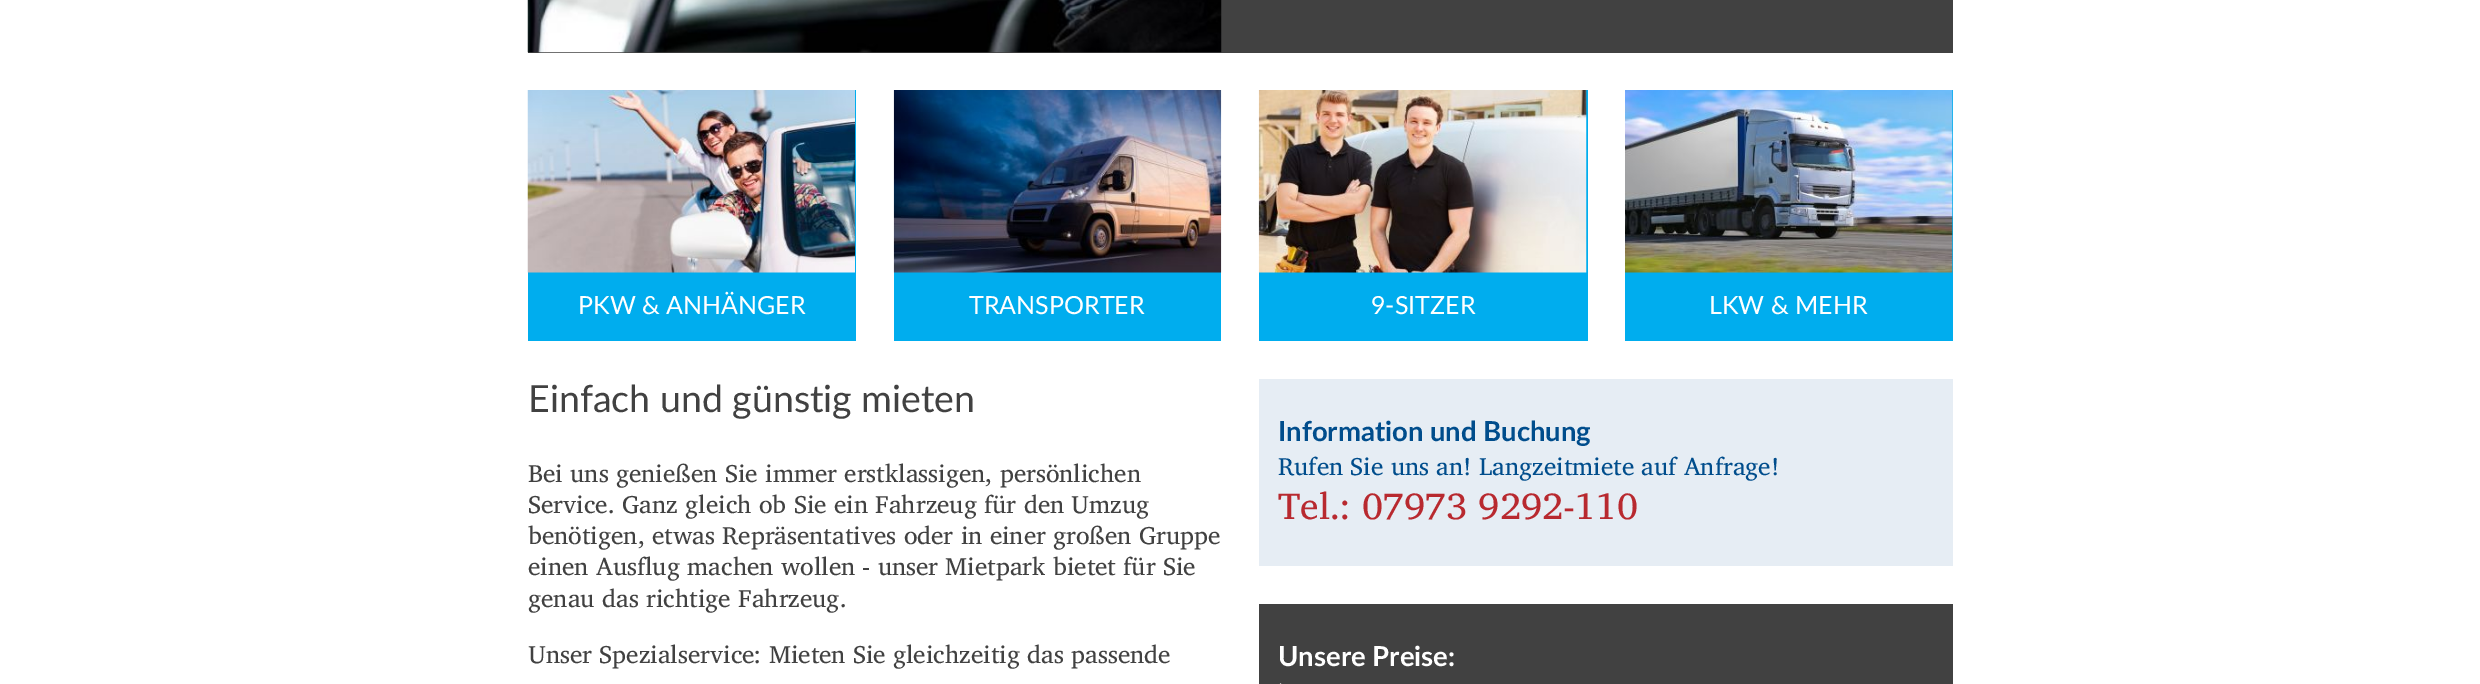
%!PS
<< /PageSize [2480 684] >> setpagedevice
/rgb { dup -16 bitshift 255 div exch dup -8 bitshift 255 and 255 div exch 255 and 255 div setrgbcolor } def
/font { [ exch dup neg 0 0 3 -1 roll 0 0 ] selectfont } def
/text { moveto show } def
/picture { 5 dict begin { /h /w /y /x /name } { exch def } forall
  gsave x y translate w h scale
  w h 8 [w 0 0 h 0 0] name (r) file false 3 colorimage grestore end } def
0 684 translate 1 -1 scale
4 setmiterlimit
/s1 { /Lato-Regular 25 font 16#FFFFFF rgb } def
/s2 { /Lato-Regular 37.5 font 16#414141 rgb } def
/s3 { /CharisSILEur-Regular 25 font 16#414141 rgb } def
/s4 { /Lato-Bold 27.5 font 16#004D8C rgb } def
/s5 { /CharisSILEur-Regular 25 font 16#004D8C rgb } def
/s6 { /CharisSILEur-Regular 37.5 font 16#B8292F rgb } def
/s7 { /Lato-Bold 27.5 font 16#FFFFFF rgb } def
16#FFFFFF rgb
0 0 2480 684 rectfill
16#414141 rgb
528 0 1425 53 rectfill
(pic1.raw) 527 0 695 53 picture
16#00ADEE rgb
528 90 328 251 rectfill
(pic2.raw) 527 90 328 183 picture
s1
(PKW & ANHÄNGER) 578 314 text
16#00ADEE rgb
894 272 327 69 rectfill
(pic3.raw) 893 90 329 183 picture
s1
(TRANSPORTER) 969 314 text
16#00ADEE rgb
1259 90 329 251 rectfill
(pic4.raw) 1258 90 329 183 picture
s1
(9-SITZER) 1371 314 text
16#00ADEE rgb
1625 90 328 251 rectfill
(pic5.raw) 1625 90 328 183 picture
s1
(LKW & MEHR) 1709 314 text
s2
(Einfach und günstig mieten) 528 412 text
s3
(Bei uns genießen Sie immer erstklassigen, persönlichen) 528 482 text
(Service. Ganz gleich ob Sie ein Fahrzeug für den Umzug) 528 513 text
(benötigen, etwas Repräsentatives oder in einer großen Gruppe) 528 544 text
(einen Ausflug machen wollen - unser Mietpark bietet für Sie) 528 575 text
(genau das richtige Fahrzeug.) 528 607 text
(Unser Spezialservice: Mieten Sie gleichzeitig das passende) 528 663 text
16#E6EDF4 rgb
1259 379 694 187 rectfill
s4
(Information und Buchung) 1278 441 text
s5
(Rufen Sie uns an! Langzeitmiete auf Anfrage!) 1278 475 text
s6
(Tel.: 07973 9292-110) 1278 519 text
16#414141 rgb
1259 604 694 80 rectfill
s7
(Unsere Preise:) 1278 666 text
(pic6.raw) 1279 683 3 1 picture
showpage
